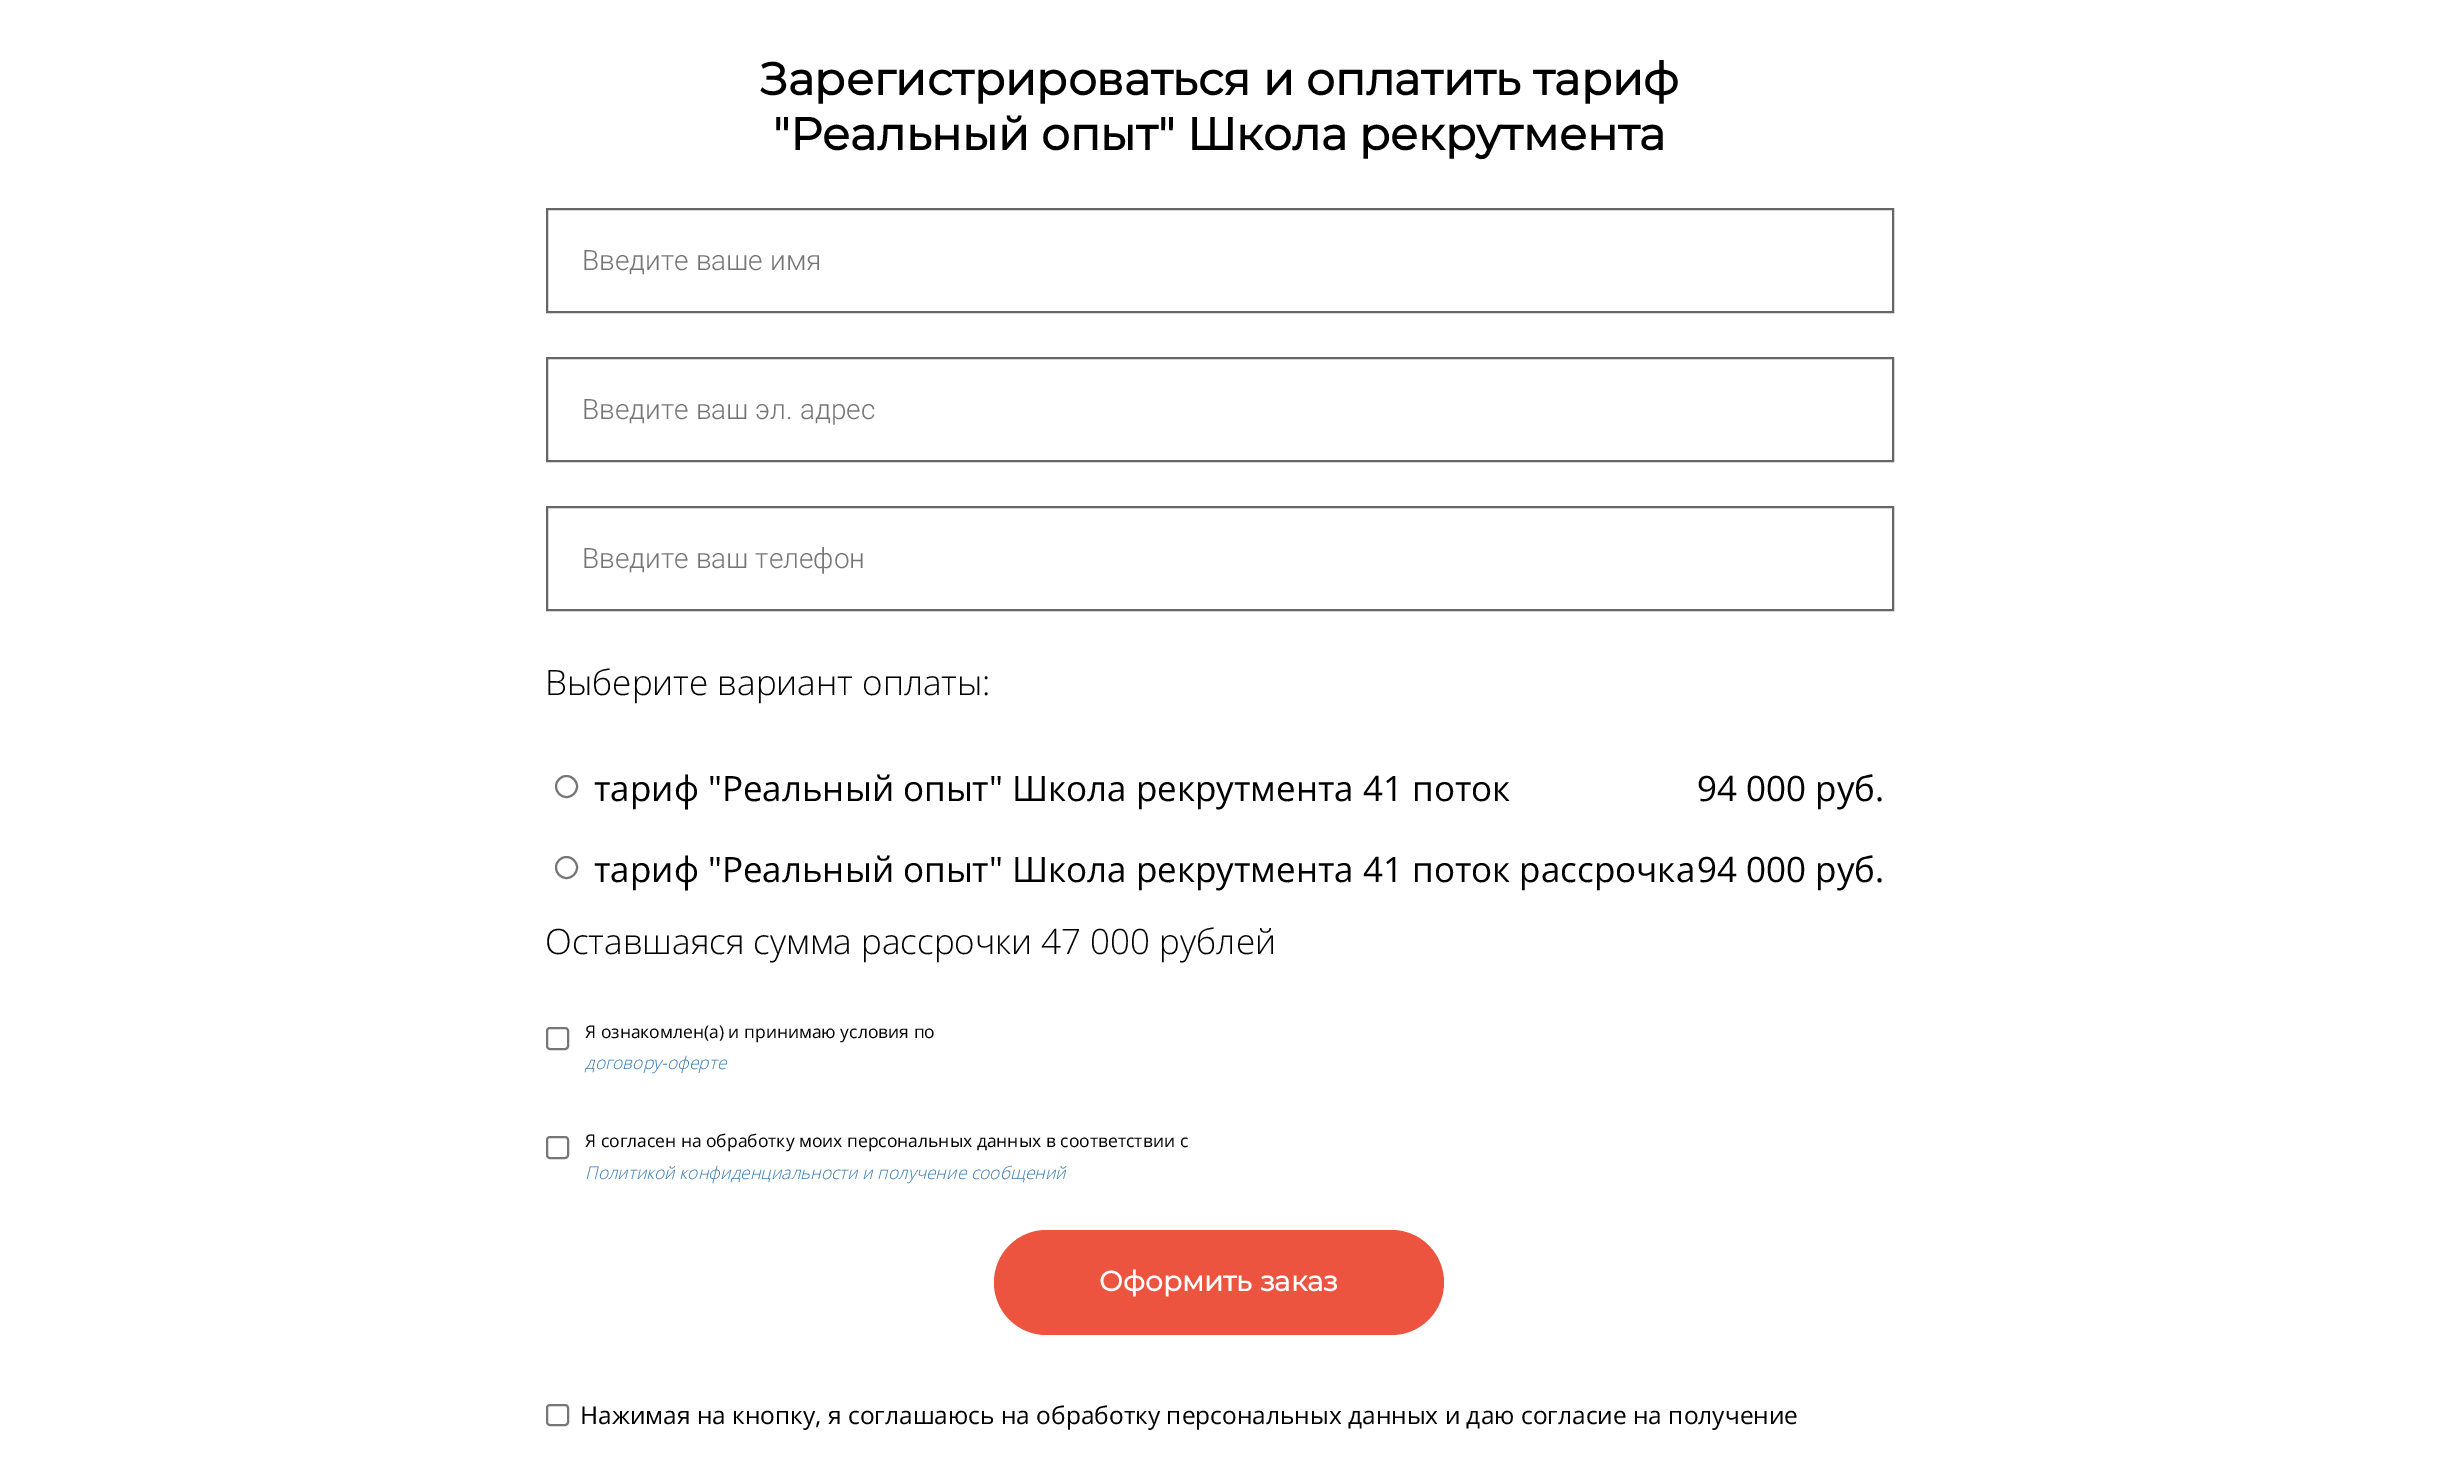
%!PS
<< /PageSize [2437 1457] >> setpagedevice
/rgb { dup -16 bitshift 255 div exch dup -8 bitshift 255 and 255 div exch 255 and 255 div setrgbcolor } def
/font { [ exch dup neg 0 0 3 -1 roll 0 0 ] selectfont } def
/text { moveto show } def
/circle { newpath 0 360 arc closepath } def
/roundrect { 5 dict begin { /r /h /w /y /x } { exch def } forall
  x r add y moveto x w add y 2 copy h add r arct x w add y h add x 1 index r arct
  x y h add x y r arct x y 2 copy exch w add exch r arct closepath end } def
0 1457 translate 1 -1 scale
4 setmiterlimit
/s1 { /Montserrat-Bold 45.5 font 16#000000 rgb } def
/s2 { /Roboto-Light 28 font 16#757575 rgb } def
/s3 { /OpenSans-Light 35 font 16#000000 rgb } def
/s4 { /OpenSans-Regular 35 font 16#000000 rgb } def
/s5 { /OpenSans-Regular 17.5 font 16#000000 rgb } def
/s6 { /OpenSans-LightItalic 17.5 font 16#337AB7 rgb } def
/s7 { /Montserrat-Bold 28 font 16#FFFFFF rgb } def
/s8 { /OpenSans-Regular 24.5 font 16#000000 rgb } def
16#FFFFFF rgb
0 0 2437 1457 rectfill
s1
(Зарегистрироваться и оплатить тариф) 759 95 text
("Реальный опыт" Школа рекрутмента) 773 150 text
16#666666 rgb
2 setlinewidth
547 209 1346 103 rectstroke
s2
(Введите ваше имя) 582 270 text
16#666666 rgb
547 358 1346 103 rectstroke
s2
(Введите ваш эл. адрес) 582 419 text
16#666666 rgb
547 507 1346 103 rectstroke
s2
(Введите ваш телефон) 582 568 text
s3
(Выберите вариант оплаты:) 545 695 text
16#767676 rgb
566.5 786.5 10.5 circle stroke
s4
(тариф "Реальный опыт" Школа рекрутмента 41 поток) 594 801 text
(94 000 руб.) 1697 801 text
16#767676 rgb
566.5 867.5 10.5 circle stroke
s4
(тариф "Реальный опыт" Школа рекрутмента 41 поток рассрочка) 594 882 text
(94 000 руб.) 1697 882 text
s3
(Оставшаяся сумма рассрочки 47 000 рублей) 545 954 text
16#767676 rgb
547 1028 21 21 3 roundrect stroke
s5
(Я ознакомлен\(а\) и принимаю условия по) 585 1038 text
s6
(договору-оферте) 585 1069 text
16#767676 rgb
547 1137 21 21 3 roundrect stroke
s5
(Я согласен на обработку моих персональных данных в соответствии с) 585 1147 text
s6
(Политикой конфиденциальности и получение сообщений) 585 1179 text
16#EC543F rgb
994 1230 450 105 52.5 roundrect fill
s7
(Оформить заказ) 1099 1291 text
16#767676 rgb
547 1405 21 20 3 roundrect stroke
s8
(Нажимая на кнопку, я соглашаюсь на обработку персональных данных и даю согласие на получение) 580 1424 text
showpage
